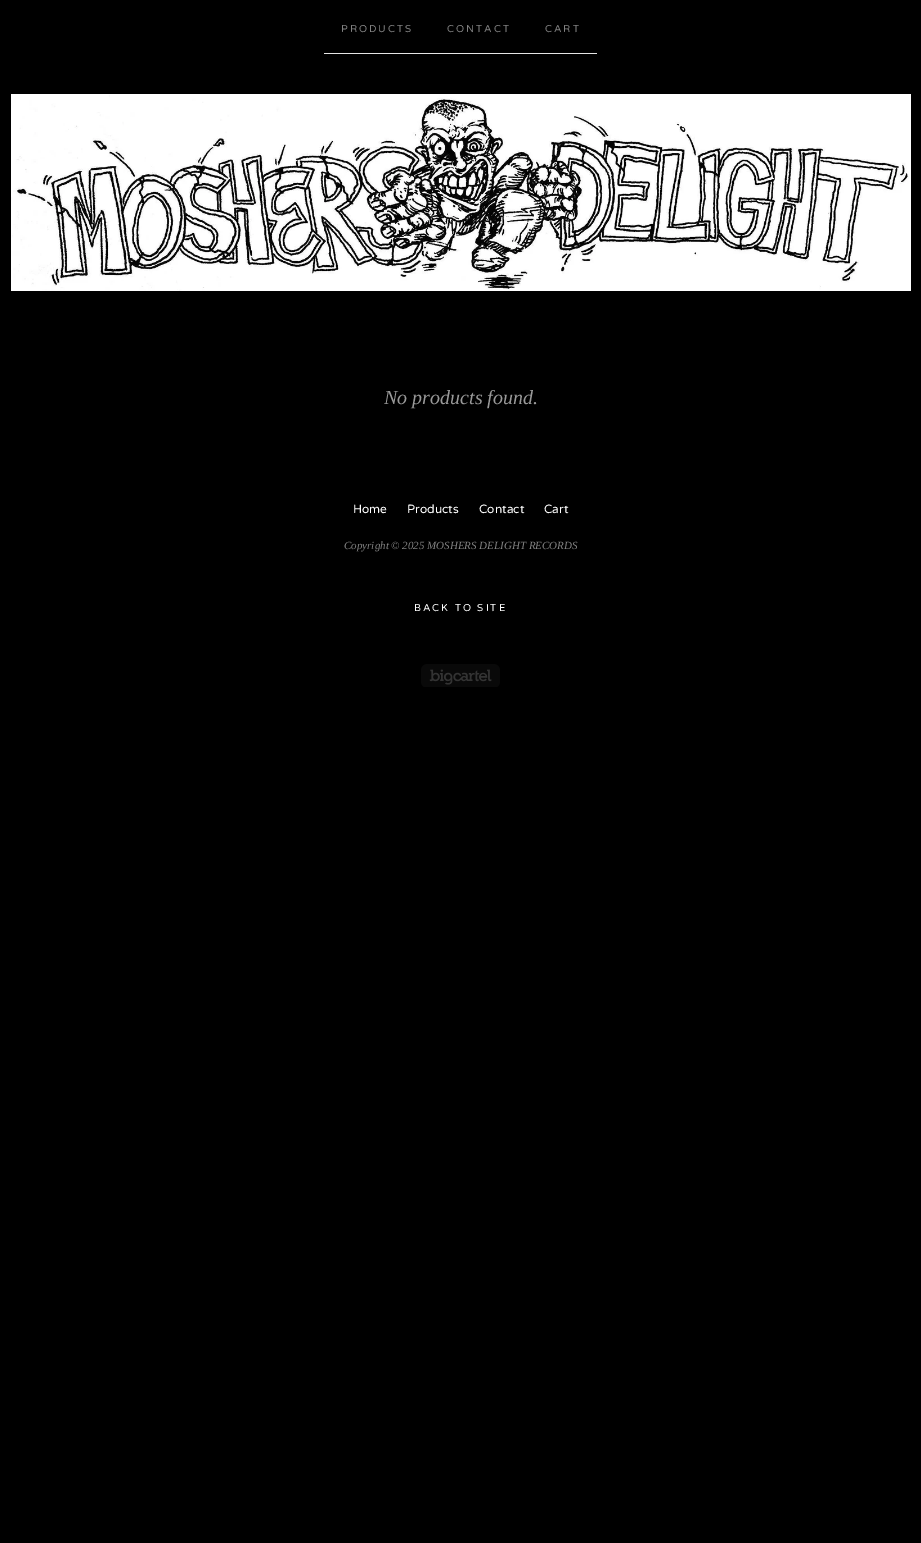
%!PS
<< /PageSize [921 1543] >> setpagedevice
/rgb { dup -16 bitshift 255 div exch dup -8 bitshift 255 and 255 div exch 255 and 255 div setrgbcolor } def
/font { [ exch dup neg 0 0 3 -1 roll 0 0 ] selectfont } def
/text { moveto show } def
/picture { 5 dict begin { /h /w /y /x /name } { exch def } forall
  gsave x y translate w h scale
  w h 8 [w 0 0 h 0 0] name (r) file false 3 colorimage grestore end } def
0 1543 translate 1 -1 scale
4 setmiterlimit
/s1 { /LiberationSerif-Italic 20 font 16#999999 rgb } def
/s2 { /VarelaRound-Regular 12 font 16#FFFFFF rgb } def
/s3 { /LiberationSerif-Italic 11 font 16#828282 rgb } def
16#000000 rgb
0 0 921 1543 rectfill
16#E5E5E5 rgb
324 53 273 1 rectfill
/VarelaRound-Regular 10 font
16#828282 rgb
341 32 moveto 2 0 (PRODUCTS) ashow
447 32 moveto 2 0 (CONTACT) ashow
545 32 moveto 2 0 (CART) ashow
(pic1.raw) 11 94 900 197 picture
s1
(No products found.) 384 404 text
s2
(Home) 353 513 text
(Products) 407 513 text
(Contact) 479 513 text
(Cart) 544 513 text
s3
(Copyright © 2025 MOSHERS DELIGHT RECORDS) 344 549 text
/VarelaRound-Regular 10 font
16#FFFFFF rgb
414 611 moveto 2 0 (BACK TO SITE) ashow
(pic2.raw) 421 664 79 23 picture
showpage
